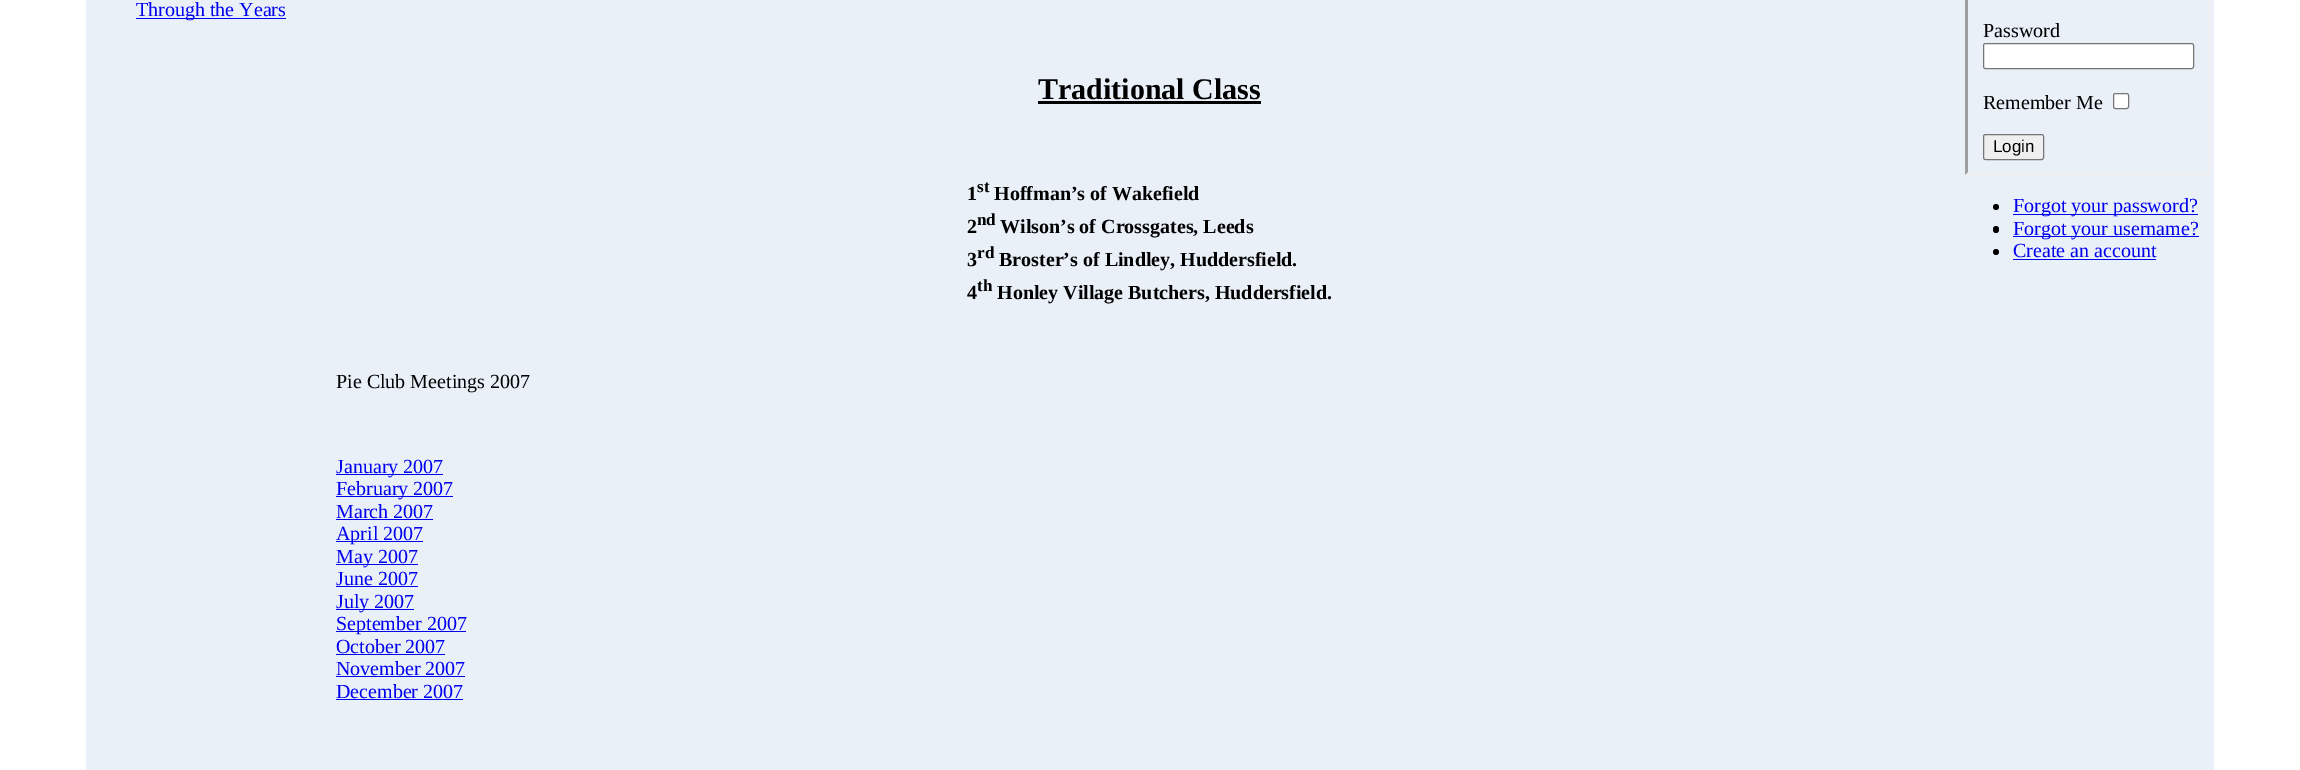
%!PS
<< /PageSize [2300 770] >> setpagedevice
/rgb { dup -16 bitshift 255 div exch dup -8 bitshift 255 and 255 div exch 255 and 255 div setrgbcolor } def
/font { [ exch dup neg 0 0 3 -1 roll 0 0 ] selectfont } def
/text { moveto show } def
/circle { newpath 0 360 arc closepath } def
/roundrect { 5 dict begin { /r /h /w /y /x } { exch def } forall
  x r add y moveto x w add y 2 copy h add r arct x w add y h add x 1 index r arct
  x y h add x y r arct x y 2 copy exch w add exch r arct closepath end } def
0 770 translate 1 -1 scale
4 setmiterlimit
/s1 { /LiberationSerif-Regular 20 font 16#0000EE rgb } def
/s2 { /LiberationSerif-Bold 30 font 16#000000 rgb } def
/s3 { /LiberationSerif-Bold 20 font 16#000000 rgb } def
/s4 { /LiberationSerif-Bold 17 font 16#000000 rgb } def
/s5 { /LiberationSerif-Regular 20 font 16#000000 rgb } def
/s6 { /LiberationSans-Regular 17 font 16#000000 rgb } def
16#FFFFFF rgb
0 0 2300 770 rectfill
16#E9F0F8 rgb
86 0 2128 770 rectfill
16#0000EE rgb
136 18 150 1 rectfill
s1
(Through the Years) 136 16 text
s2
(Traditional Class) 1038 99 text
1038 101 223 3 rectfill
s3
(1) 967 200 text
s4
(st) 977 192 text
s3
(Hoffman’s of Wakefield) 994 200 text
(2) 967 233 text
s4
(nd) 977 225 text
s3
(Wilson’s of Crossgates, Leeds) 1000 233 text
(3) 967 266 text
s4
(rd) 977 258 text
s3
(Broster’s of Lindley, Huddersfield.) 999 266 text
(4) 967 299 text
s4
(th) 977 291 text
s3
(Honley Village Butchers, Huddersfield.) 997 299 text
s5
(Pie Club Meetings 2007) 336 388 text
16#0000EE rgb
336 474 107 1 rectfill
(January 2007) 336 473 text
336 496 117 1 rectfill
(February 2007) 336 495 text
(March 2007) 336 518 text
336 519 97 1 rectfill
336 541 87 1 rectfill
(April 2007) 336 540 text
336 564 82 1 rectfill
(May 2007) 336 563 text
(June 2007) 336 585 text
336 586 82 1 rectfill
336 609 78 1 rectfill
(July 2007) 336 608 text
336 631 130 1 rectfill
(September 2007) 336 630 text
(October 2007) 336 653 text
336 654 109 1 rectfill
(November 2007) 336 675 text
336 676 129 1 rectfill
(December 2007) 336 698 text
336 699 127 1 rectfill
16#EFEFEF rgb
2211 -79 moveto 2211 175 lineto 2209 172 lineto 2209 -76 lineto closepath fill
2211 175 moveto 1965 175 lineto 1968 172 lineto 2209 172 lineto closepath fill
16#9F9F9F rgb
1965 175 moveto 1965 -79 lineto 1968 -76 lineto 1968 172 lineto closepath fill
s5
(Password) 1983 37 text
16#FFFFFF rgb
1983.5 43.5 210 25 2 roundrect gsave fill grestore
16#767676 rgb
stroke
s5
(Remember Me) 1983 109 text
16#FFFFFF rgb
2113.5 93.5 15 15 2 roundrect gsave fill grestore
16#767676 rgb
stroke
16#EFEFEF rgb
1983.5 134.5 60 25 2 roundrect gsave fill grestore
16#767676 rgb
stroke
s6
(Login) 1993 152 text
1996 207 3 circle fill
16#0000EE rgb
2013 214 185 1 rectfill
s1
(Forgot your password?) 2013 212 text
16#000000 rgb
1993 226 6 7 3 roundrect fill
16#0000EE rgb
2013 236 186 1 rectfill
(Forgot your username?) 2013 235 text
16#000000 rgb
1996 252 3 circle fill
s1
(Create an account) 2013 257 text
2013 259 143 1 rectfill
showpage
